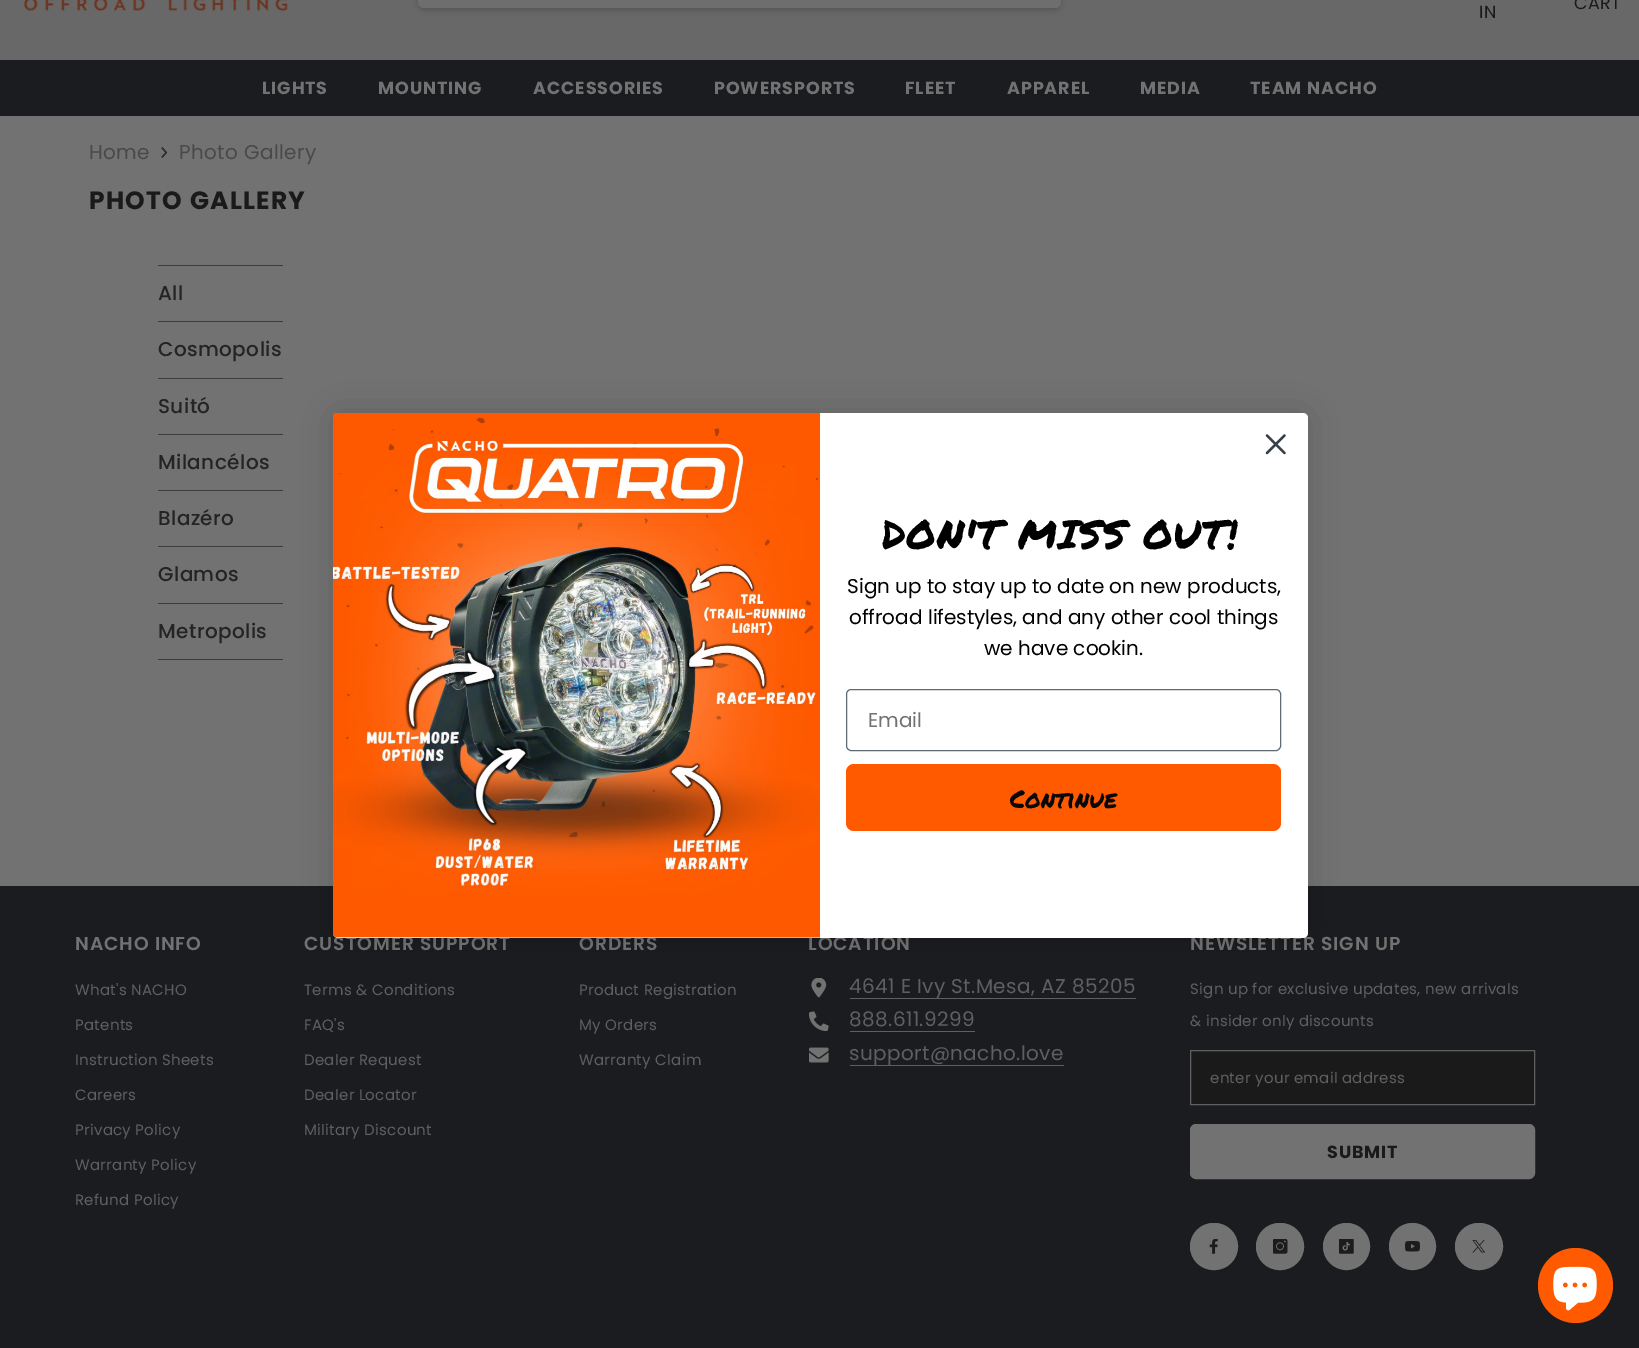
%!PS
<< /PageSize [1639 1348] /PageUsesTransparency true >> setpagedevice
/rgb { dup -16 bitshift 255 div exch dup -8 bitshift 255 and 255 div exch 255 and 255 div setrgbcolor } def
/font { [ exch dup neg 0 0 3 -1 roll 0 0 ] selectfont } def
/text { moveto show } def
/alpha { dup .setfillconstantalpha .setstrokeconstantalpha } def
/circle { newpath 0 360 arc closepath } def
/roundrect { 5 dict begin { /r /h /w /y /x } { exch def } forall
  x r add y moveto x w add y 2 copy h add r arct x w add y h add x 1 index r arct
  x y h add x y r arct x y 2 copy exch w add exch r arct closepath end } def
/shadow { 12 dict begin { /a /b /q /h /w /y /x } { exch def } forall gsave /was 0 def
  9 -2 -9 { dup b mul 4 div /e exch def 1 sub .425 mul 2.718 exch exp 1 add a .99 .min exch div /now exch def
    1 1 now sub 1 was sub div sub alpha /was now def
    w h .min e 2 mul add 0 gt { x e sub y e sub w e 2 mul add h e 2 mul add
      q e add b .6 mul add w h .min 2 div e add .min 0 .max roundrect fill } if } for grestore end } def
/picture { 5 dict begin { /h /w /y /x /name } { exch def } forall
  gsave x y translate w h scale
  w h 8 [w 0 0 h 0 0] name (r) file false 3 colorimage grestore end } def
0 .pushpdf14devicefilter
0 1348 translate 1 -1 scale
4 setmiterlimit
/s1 { /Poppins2-Regular 20 font 16#000000 rgb } def
/s2 { /Poppins2-Regular 20 font 16#727272 rgb } def
/s3 { /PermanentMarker-Regular 25 font 16#080808 rgb } def
16#727272 rgb
0 0 1639 1348 rectfill
16#686868 rgb
0 0 1639 60 rectfill
(pic1.raw) 24 0 264 11 picture
16#0C0C0C rgb
418 -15 643 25 6 3 0.2 shadow
16#6E6E6E rgb
418 -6 643 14 6 roundrect fill
/Poppins-Regular 17.5 font
16#1A1A1A rgb
1479 18 moveto 0.5 0 (IN) ashow
1574 9 moveto 0.5 0 (CART) ashow
16#1A1C1F rgb
0 60 1639 56 rectfill
/Poppins-Bold 17.5 font
16#727272 rgb
262 94 moveto 0.9 0 (LIGHTS) ashow
378 94 moveto 0.9 0 (MOUNTING) ashow
533 94 moveto 0.9 0 (ACCESSORIES) ashow
714 94 moveto 0.9 0 (POWERSPORTS) ashow
905 94 moveto 0.9 0 (FLEET) ashow
1007 94 moveto 0.9 0 (APPAREL) ashow
1140 94 moveto 0.9 0 (MEDIA) ashow
1250 94 moveto 0.9 0 (TEAM NACHO) ashow
/Poppins-Regular 20 font
16#494949 rgb
89 159 moveto 0.4 0 (Home) ashow
(pic2.raw) 161 147 7 11 picture
179 159 moveto 0.4 0 (Photo Gallery) ashow
/Poppins-Bold 25 font
16#1A1A1A rgb
89 209 moveto 1.25 0 (PHOTO GALLERY) ashow
16#3C3C3C rgb
158 265 125 1 rectfill
/Poppins-Medium 20 font
16#242424 rgb
158 300 moveto 0.4 0 (All) ashow
16#3C3C3C rgb
158 321 125 1 rectfill
16#242424 rgb
158 356 moveto 0.4 0 (Cosmopolis) ashow
16#3C3C3C rgb
158 378 125 1 rectfill
16#242424 rgb
158 413 moveto 0.4 0 (Suitó) ashow
16#3C3C3C rgb
158 434 125 1 rectfill
16#242424 rgb
158 469 moveto 0.4 0 (Milancélos) ashow
16#3C3C3C rgb
158 490 125 1 rectfill
16#242424 rgb
158 525 moveto 0.4 0 (Blazéro) ashow
16#3C3C3C rgb
158 546 125 1 rectfill
16#242424 rgb
158 581 moveto 0.4 0 (Glamos) ashow
16#3C3C3C rgb
158 603 125 1 rectfill
158 659 125 1 rectfill
16#242424 rgb
158 638 moveto 0.4 0 (Metropolis) ashow
16#1A1C1F rgb
0 886 1639 462 rectfill
/Poppins-SemiBold 18.75 font
16#727272 rgb
75 950 moveto 0.9 0 (NACHO INFO) ashow
/Poppins-Regular 15 font
16#5F5F5F rgb
75 995 moveto 0.3 0 (What's NACHO) ashow
75 1030 moveto 0.3 0 (Patents) ashow
75 1065 moveto 0.3 0 (Instruction Sheets) ashow
75 1100 moveto 0.3 0 (Careers) ashow
75 1135 moveto 0.3 0 (Privacy Policy) ashow
75 1170 moveto 0.3 0 (Warranty Policy) ashow
75 1205 moveto 0.3 0 (Refund Policy) ashow
/Poppins-SemiBold 18.75 font
16#727272 rgb
304 950 moveto 0.9 0 (CUSTOMER SUPPORT) ashow
/Poppins-Regular 15 font
16#5F5F5F rgb
304 995 moveto 0.3 0 (Terms & Conditions) ashow
304 1030 moveto 0.3 0 (FAQ's) ashow
304 1065 moveto 0.3 0 (Dealer Request) ashow
304 1100 moveto 0.3 0 (Dealer Locator) ashow
304 1135 moveto 0.3 0 (Military Discount) ashow
/Poppins-SemiBold 18.75 font
16#727272 rgb
579 950 moveto 0.9 0 (ORDERS) ashow
/Poppins-Regular 15 font
16#5F5F5F rgb
579 995 moveto 0.3 0 (Product Registration) ashow
579 1030 moveto 0.3 0 (My Orders) ashow
579 1065 moveto 0.3 0 (Warranty Claim) ashow
/Poppins-SemiBold 18.75 font
16#727272 rgb
808 950 moveto 0.9 0 (LOCATION) ashow
(pic3.raw) 811 978 16 20 picture
16#5F5F5F rgb
850 998 286 1 rectfill
/Poppins-Regular 20 font
849 993 moveto 0.4 0 (4641 E Ivy St.Mesa, AZ 85205) ashow
(pic4.raw) 809 1011 20 20 picture
849 1026 moveto 0.4 0 (888.611.9299) ashow
850 1031 125 1 rectfill
(pic5.raw) 809 1047 20 16 picture
850 1065 214 1 rectfill
849 1060 moveto 0.4 0 (support@nacho.love) ashow
/Poppins-SemiBold 18.75 font
16#727272 rgb
1190 950 moveto 0.9 0 (NEWSLETTER SIGN UP) ashow
/Poppins-Regular 15 font
16#5F5F5F rgb
1190 994 moveto 0.3 0 (Sign up for exclusive updates, new arrivals) ashow
1190 1026 moveto 0.3 0 (& insider only discounts) ashow
16#1A1A1A rgb
1190.5 1050.5 moveto 1534.5 1050.5 lineto 1534.5 1104.5 lineto 1190.5 1104.5 lineto closepath gsave fill grestore
16#606060 rgb
stroke
16#5F5F5F rgb
1210 1083 moveto 0.3 0 (enter your email address) ashow
16#727272 rgb
1190.5 1124.5 344 54 5.5 roundrect gsave fill grestore
stroke
/Poppins-Bold 17.5 font
16#1A1A1A rgb
1327 1158 moveto 0.9 0 (SUBMIT) ashow
16#727272 rgb
1190.5 1223.5 47 46 23 roundrect gsave fill grestore
stroke
(pic6.raw) 1209 1239 9 15 picture
1256.5 1223.5 47 46 23 roundrect gsave fill grestore
stroke
(pic7.raw) 1273 1239 15 15 picture
1346.5 1246.5 23 circle gsave fill grestore
stroke
(pic8.raw) 1339 1239 15 15 picture
1412.5 1246.5 23 circle gsave fill grestore
stroke
(pic9.raw) 1405 1241 15 11 picture
1455.5 1223.5 47 46 23 roundrect gsave fill grestore
stroke
(pic10.raw) 1472 1240 13 13 picture
16#000000 rgb
333 413 975 525 5 19 0.15 shadow
16#FFFFFF rgb
333 413 975 525 5 roundrect fill
16#373F47 rgb
2.2 setlinewidth
1 setlinecap
1 setlinejoin
1267 435.5 moveto 1284.5 453 lineto 1267 453 moveto 1284.5 435.5 lineto closepath stroke
(pic11.raw) 333 413 487 525 picture
/PermanentMarker-Regular 40 font
16#000000 rgb
882 549 moveto 0.9 0 (DON'T MISS OUT!) ashow
s1
(Sign up to stay up to date on new products,) 847 593 text
(offroad lifestyles, and any other cool things) 849 624 text
(we have cookin.) 984 655 text
16#606A72 rgb
1 setlinewidth
0 setlinecap
0 setlinejoin
846.5 689.5 434 61 4.5 roundrect stroke
s2
(Email) 868 727 text
16#FF5A00 rgb
846 764 435 67 8 roundrect fill
s3
(Continue) 1010 808 text
16#FF5A00 rgb
1575.5 1285.5 37.5 circle fill
(pic12.raw) 1553 1266 44 45 picture
.poppdf14devicefilter showpage
